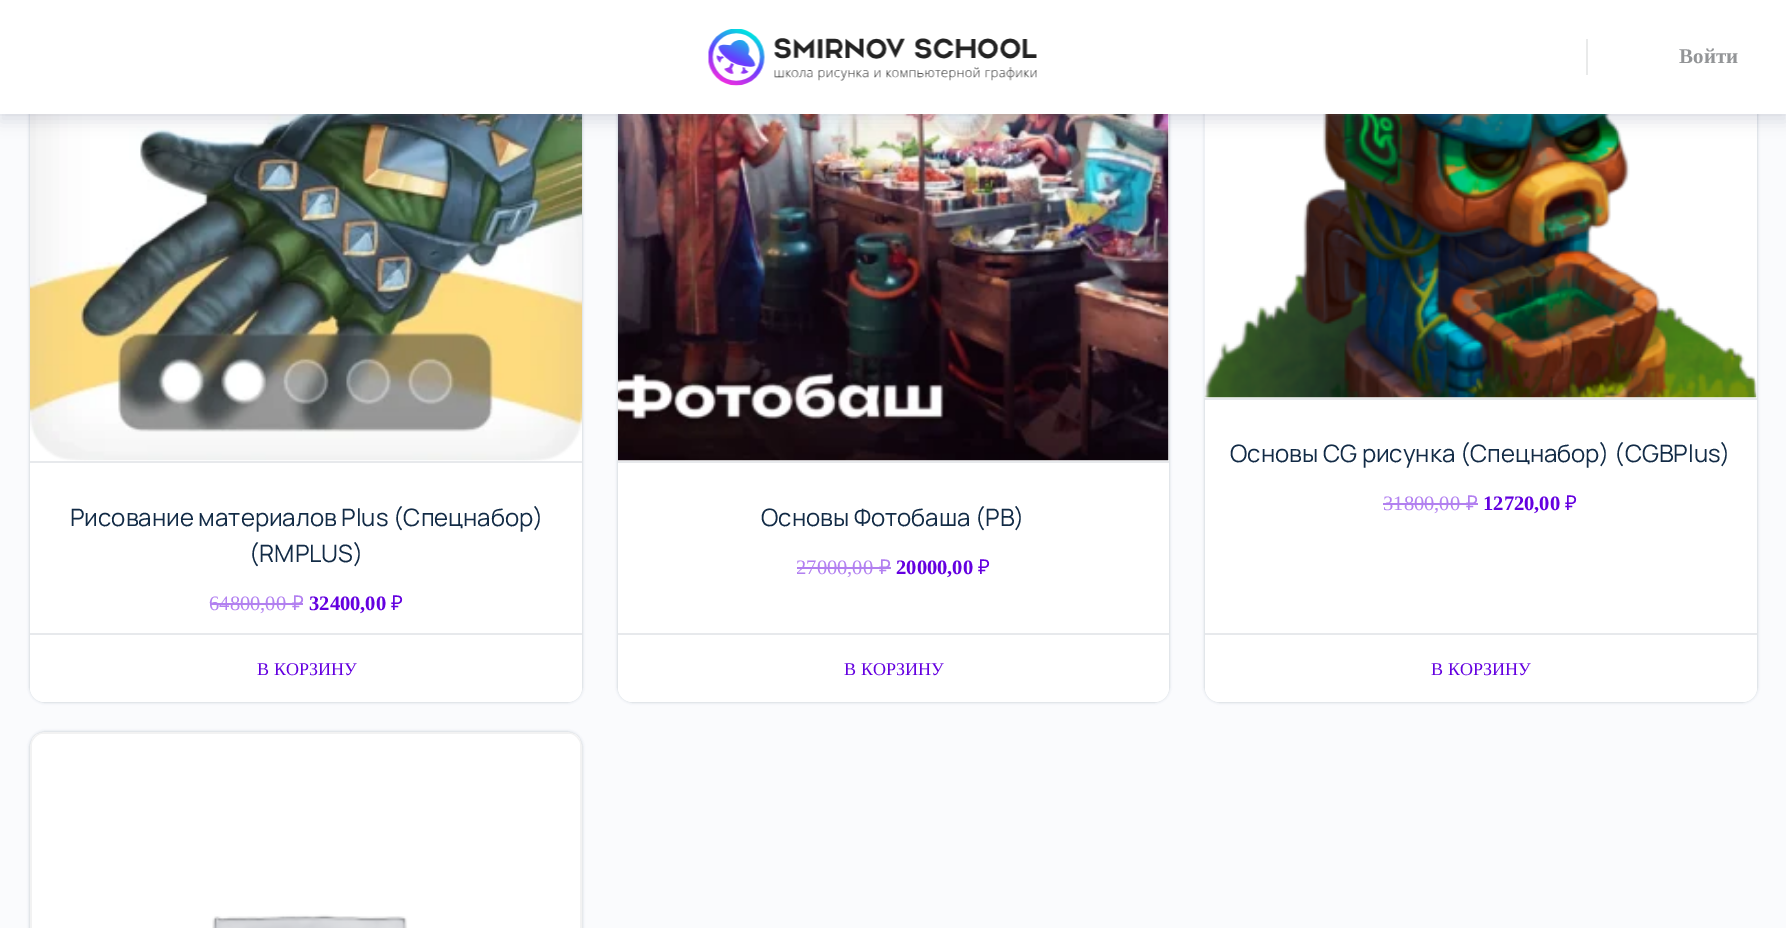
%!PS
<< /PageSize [1786 928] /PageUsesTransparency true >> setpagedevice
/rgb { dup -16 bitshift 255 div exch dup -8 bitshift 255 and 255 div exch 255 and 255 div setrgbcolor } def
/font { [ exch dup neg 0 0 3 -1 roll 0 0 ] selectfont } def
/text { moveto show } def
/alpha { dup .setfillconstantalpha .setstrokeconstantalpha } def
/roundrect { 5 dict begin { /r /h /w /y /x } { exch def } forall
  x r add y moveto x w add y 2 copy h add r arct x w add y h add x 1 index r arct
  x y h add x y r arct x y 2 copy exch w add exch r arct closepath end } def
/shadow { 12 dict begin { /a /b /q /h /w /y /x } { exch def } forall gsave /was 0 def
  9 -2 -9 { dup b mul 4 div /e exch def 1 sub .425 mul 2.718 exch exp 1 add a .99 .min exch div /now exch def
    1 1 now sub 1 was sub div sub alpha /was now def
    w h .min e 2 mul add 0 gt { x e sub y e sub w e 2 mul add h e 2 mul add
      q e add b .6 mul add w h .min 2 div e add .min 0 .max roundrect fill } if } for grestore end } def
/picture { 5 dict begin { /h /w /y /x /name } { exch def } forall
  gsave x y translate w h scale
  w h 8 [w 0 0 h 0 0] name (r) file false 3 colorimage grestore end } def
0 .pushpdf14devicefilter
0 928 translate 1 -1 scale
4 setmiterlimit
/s1 { /LiberationSerif-Bold 21 font 16#939597 rgb } def
/s2 { /Manrope-ExtraLight 24 font 16#122B46 rgb } def
/s3 { /LiberationSerif-Regular 20.5 font 16#B280F0 rgb } def
/s4 { /NotoSans-Regular 20.5 font 16#B280F0 rgb } def
/s5 { /LiberationSerif-Bold 20.5 font 16#6400E0 rgb } def
/s6 { /NotoSans-Regular 20.5 font 16#6400E0 rgb } def
/s7 { /LiberationSerif-Regular 18 font 16#6400E0 rgb } def
16#FAFBFD rgb
0 0 1786 928 rectfill
16#122B46 rgb
30 -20 552 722 15 1.5 0.25 shadow
16#FFFFFF rgb
30 -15 552 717 15 roundrect fill
(pic2.raw) 30 114 552 347 picture
16#122B46 rgb
618 -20 551 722 15 1.5 0.25 shadow
16#FFFFFF rgb
618 -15 551 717 15 roundrect fill
(pic3.raw) 618 114 551 347 picture
16#122B46 rgb
1205 -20 552 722 15 1.5 0.25 shadow
16#FFFFFF rgb
1205 -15 552 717 15 roundrect fill
(pic4.raw) 1204 114 553 284 picture
16#41476C rgb
0 8 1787 114 0 7.5 0.15 shadow
0.05 alpha
16#8B8D9D rgb
0 114 moveto 0 116 lineto 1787 116 lineto 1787 2 lineto 1786 2 lineto 1786 114 lineto closepath fill
1 alpha
16#FFFFFF rgb
0 0 1786 114 rectfill
(pic1.raw) 708 29 329 57 picture
16#E9EAEA rgb
1586 39 2 36 rectfill
s1
(Войти) 1679 63 text
16#E7E9EC rgb
30 461 552 2 rectfill
s2
(Рисование материалов Plus \(Спецнабор\)) 70 526 text
(\(RMPLUS\)) 249 562 text
s3
(64800,00) 209 610 text
210 603 81 2 rectfill
s4
(₽) 292 610 text
291 603 12 2 rectfill
s5
(32400,00) 309 610 text
s6
(₽) 391 610 text
16#FFFFFF rgb
30 633 moveto 582 633 lineto 582 687 lineto 582 695.5 575.5 702 567 702 curveto 45 702 lineto 36.5 702 30 695.5 30 687 curveto closepath fill
16#E7E9EC rgb
30 633 552 2 rectfill
s7
(В КОРЗИНУ) 257 675 text
16#E7E9EC rgb
618 461 551 2 rectfill
s2
(Основы Фотобаша \(PB\)) 761 526 text
s3
(27000,00) 796 574 text
797 567 82 2 rectfill
s4
(₽) 879 574 text
879 567 12 2 rectfill
s5
(20000,00) 896 574 text
s6
(₽) 978 574 text
16#FFFFFF rgb
618 633 moveto 1169 633 lineto 1169 687 lineto 1169 695.5 1162.5 702 1154 702 curveto 633 702 lineto 624.5 702 618 695.5 618 687 curveto closepath fill
16#E7E9EC rgb
618 633 551 2 rectfill
s7
(В КОРЗИНУ) 844 675 text
16#E7E9EC rgb
1205 398 552 2 rectfill
s2
(Основы CG рисунка \(Спецнабор\) \(CGBPlus\)) 1230 462 text
s3
(31800,00) 1383 510 text
1383 503 83 2 rectfill
s4
(₽) 1466 510 text
1466 503 12 2 rectfill
s5
(12720,00) 1483 510 text
s6
(₽) 1565 510 text
16#FFFFFF rgb
1205 633 moveto 1757 633 lineto 1757 687 lineto 1757 695.5 1750.5 702 1742 702 curveto 1220 702 lineto 1211.5 702 1205 695.5 1205 687 curveto closepath fill
16#E7E9EC rgb
1205 633 552 2 rectfill
s7
(В КОРЗИНУ) 1431 675 text
16#122B46 rgb
30 732 552 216 15 1.5 0.25 shadow
16#F2F2F2 rgb
2 setlinewidth
45 733 moveto 567 733 lineto 574.5 733 581 739.5 581 747 curveto 581 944 lineto 31 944 lineto 31 747 lineto 31 739.5 37.5 733 45 733 curveto closepath stroke
(pic5.raw) 32 734 548 194 picture
.poppdf14devicefilter showpage
